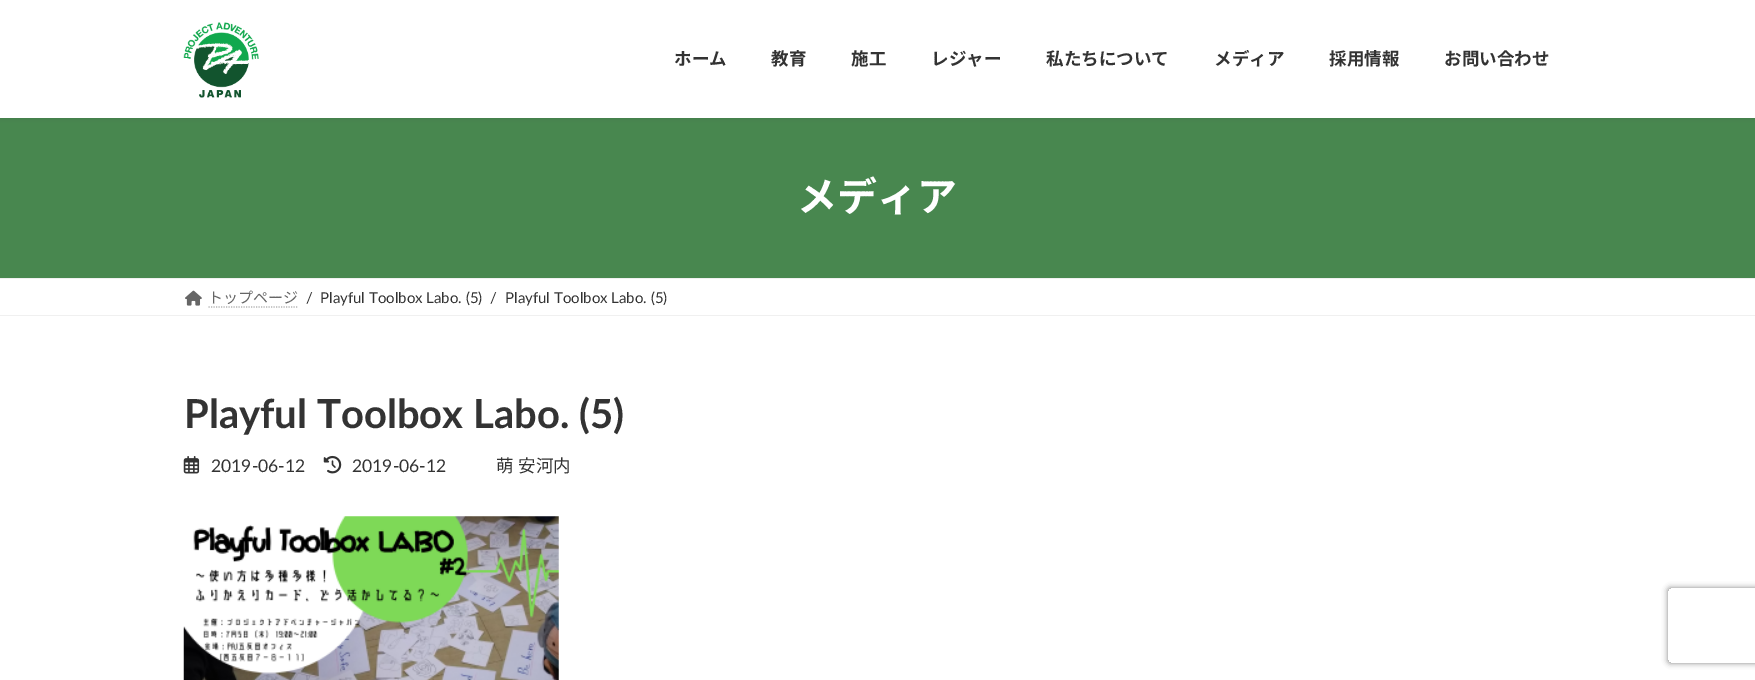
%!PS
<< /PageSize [1755 680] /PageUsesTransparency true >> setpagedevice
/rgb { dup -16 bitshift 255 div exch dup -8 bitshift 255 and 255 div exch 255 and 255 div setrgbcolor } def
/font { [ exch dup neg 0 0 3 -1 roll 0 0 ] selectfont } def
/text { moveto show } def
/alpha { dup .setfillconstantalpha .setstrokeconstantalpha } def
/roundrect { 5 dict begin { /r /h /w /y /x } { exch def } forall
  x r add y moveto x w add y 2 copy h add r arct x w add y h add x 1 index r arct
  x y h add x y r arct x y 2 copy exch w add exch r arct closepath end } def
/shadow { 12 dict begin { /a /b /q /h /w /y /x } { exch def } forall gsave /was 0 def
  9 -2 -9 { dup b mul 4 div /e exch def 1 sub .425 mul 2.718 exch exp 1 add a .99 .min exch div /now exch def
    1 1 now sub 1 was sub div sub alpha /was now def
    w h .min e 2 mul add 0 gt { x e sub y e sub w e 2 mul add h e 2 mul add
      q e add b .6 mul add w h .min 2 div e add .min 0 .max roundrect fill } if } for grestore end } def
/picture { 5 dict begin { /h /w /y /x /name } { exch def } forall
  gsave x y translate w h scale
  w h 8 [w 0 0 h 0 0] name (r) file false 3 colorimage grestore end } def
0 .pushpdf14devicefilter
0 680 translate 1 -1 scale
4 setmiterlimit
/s1 { /NotoSansJP-Bold 17.5 font 16#333333 rgb } def
/s2 { /NotoSansJP-Bold 40 font 16#FFFFFF rgb } def
/s3 { /NotoSansJP-Regular 15 font 16#666666 rgb } def
/s4 { /Lato-Regular 15 font 16#333333 rgb } def
/s5 { /Lato-Bold 40 font 16#333333 rgb } def
/s6 { /Lato-Regular 17.5 font 16#333333 rgb } def
16#FFFFFF rgb
0 0 1755 680 rectfill
16#48874F rgb
0 118 1755 160 rectfill
16#000000 rgb
0 1 1755 118 0 2 0.05 shadow
16#FFFFFF rgb
0 0 1755 118 rectfill
(pic1.raw) 183 22 76 76 picture
s1
(ホーム) 674 65 text
(教育) 771 65 text
(施工) 851 65 text
(レジャー) 931 65 text
(私たちについて) 1046 65 text
(メディア) 1214 65 text
(採用情報) 1329 65 text
(お問い合わせ) 1444 65 text
s2
(メディア) 797 211 text
16#F0F0F0 rgb
0 278 1755 1 rectfill
0 315 1755 1 rectfill
(pic2.raw) 185 290 17 16 picture
s3
(トップページ) 208 303 text
16#B3B3B3 rgb
1.2 setlinewidth
[1.25 1.25] 0 setdash
208.5 307 moveto 298.5 307 lineto stroke
s4
(/) 306 303 text
(Playful Toolbox Labo. \(5\)) 320 303 text
(/) 490 303 text
(Playful Toolbox Labo. \(5\)) 505 303 text
s5
(Playful Toolbox Labo. \(5\)) 184 428 text
(pic3.raw) 183 456 17 18 picture
s6
(2019-06-12) 211 472 text
(pic4.raw) 323 455 19 19 picture
(2019-06-12) 352 472 text
/NotoSansJP-Regular 17.5 font
496 472 moveto 1 0 32 (萌 安河内) widthshow
(pic5.raw) 183 516 376 164 picture
gsave
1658 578 moveto 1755 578 lineto 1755 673 lineto 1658 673 lineto closepath 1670.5 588 moveto 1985.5 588 lineto 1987 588 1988 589 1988 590.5 curveto 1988 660.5 lineto 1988 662 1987 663 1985.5 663 curveto 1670.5 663 lineto 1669 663 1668 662 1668 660.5 curveto 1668 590.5 lineto 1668 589 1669 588 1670.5 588 curveto closepath eoclip newpath
16#808080 rgb
1668 588 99 75 2.5 3 1 shadow
grestore
.poppdf14devicefilter showpage
